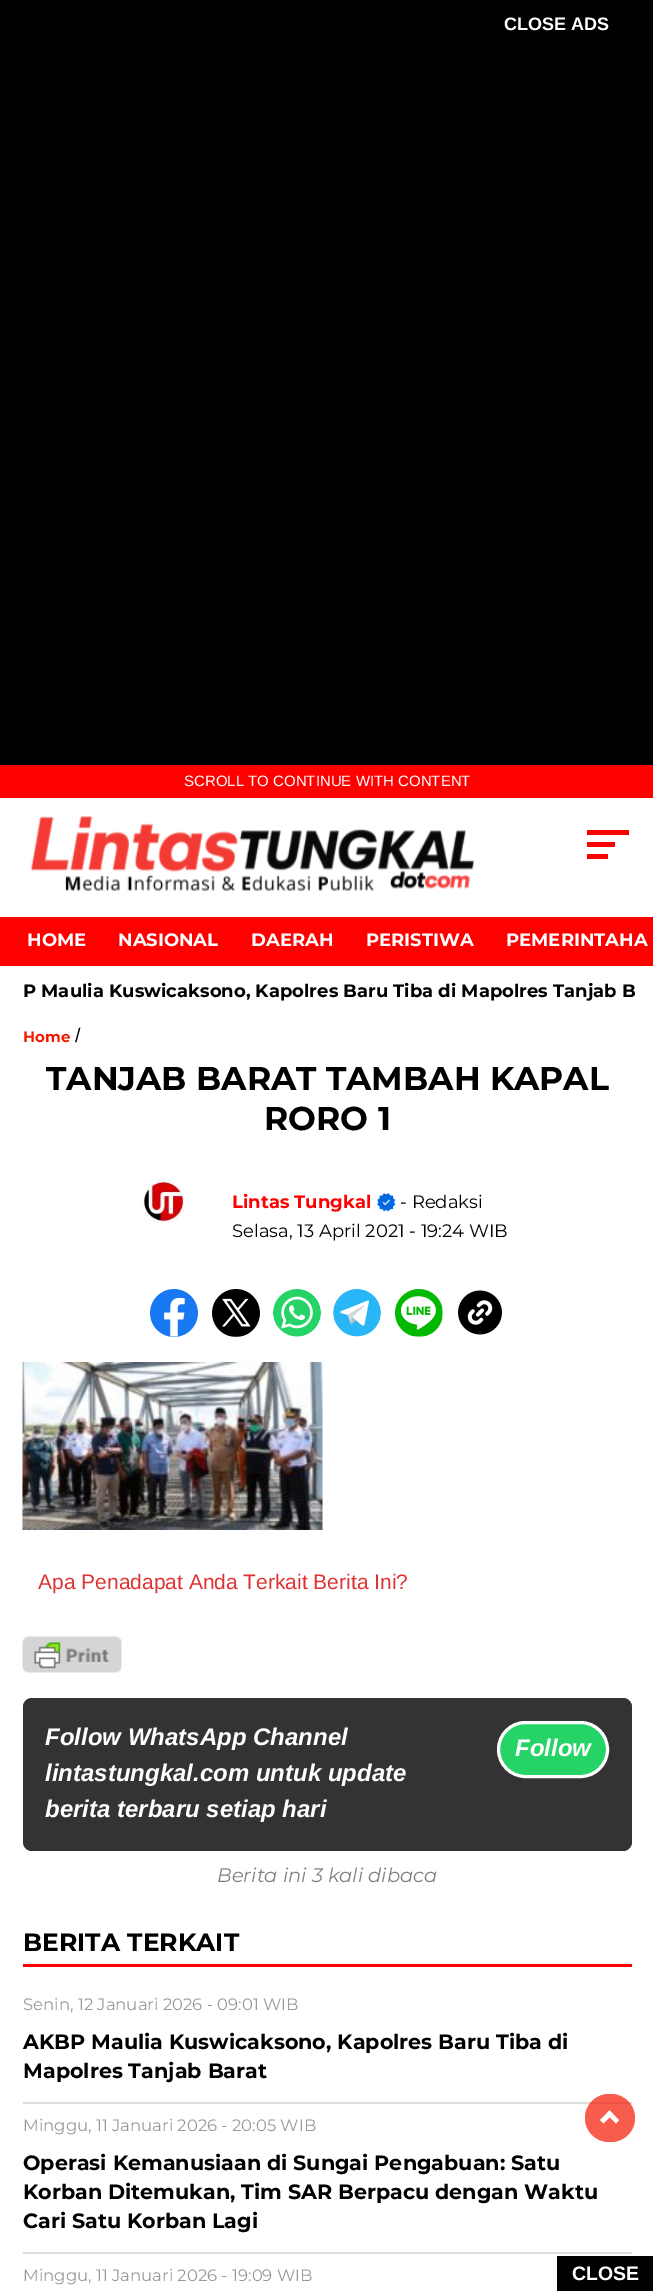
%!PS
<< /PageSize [653 2292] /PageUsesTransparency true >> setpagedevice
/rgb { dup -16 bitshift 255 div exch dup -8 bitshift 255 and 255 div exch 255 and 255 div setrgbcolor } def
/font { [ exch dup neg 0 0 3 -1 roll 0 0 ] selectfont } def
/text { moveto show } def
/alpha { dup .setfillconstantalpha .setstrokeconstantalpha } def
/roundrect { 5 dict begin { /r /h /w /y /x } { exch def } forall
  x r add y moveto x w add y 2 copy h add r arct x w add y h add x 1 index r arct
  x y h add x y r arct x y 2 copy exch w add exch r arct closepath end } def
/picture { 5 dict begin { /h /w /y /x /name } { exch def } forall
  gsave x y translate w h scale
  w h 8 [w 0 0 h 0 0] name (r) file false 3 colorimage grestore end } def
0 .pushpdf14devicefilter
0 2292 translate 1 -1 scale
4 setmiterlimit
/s1 { /LiberationSans-Bold 18 font 16#FFFFFF rgb } def
/s2 { /LiberationSans-Regular 15 font 16#FFFFFF rgb } def
/s3 { /Montserrat-Bold 18 font 16#FFFFFF rgb } def
/s4 { /Montserrat-Bold 18 font 16#000000 rgb } def
/s5 { /Montserrat-Bold 15 font 16#F51700 rgb } def
/s6 { /LiberationSans-Regular 19.5 font 16#000000 rgb } def
/s7 { /Montserrat-Bold 33 font 16#000000 rgb } def
/s8 { /Montserrat-Bold 18 font 16#FF0000 rgb } def
/s9 { /Montserrat-Regular 18 font 16#000000 rgb } def
/s10 { /LiberationSans-Regular 21 font 16#DD3333 rgb } def
/s11 { /LiberationSans-BoldItalic 24 font 16#FFFFFF rgb } def
/s12 { /Montserrat-Italic 19.5 font 16#808080 rgb } def
/s13 { /Montserrat-Bold 25 font 16#000000 rgb } def
/s14 { /Montserrat-Regular 16.5 font 16#999999 rgb } def
/s15 { /Montserrat-Bold 20.7 font 16#000000 rgb } def
/s16 { /LiberationSans-Bold 19.5 font 16#FFFFFF rgb } def
16#FFFFFF rgb
0 0 653 2292 rectfill
16#000000 rgb
0 0 653 765 rectfill
s1
(CLOSE ADS) 504 30 text
16#FF0000 rgb
0 765 653 33 rectfill
s2
(SCROLL TO CONTINUE WITH CONTENT) 184 786 text
(pic1.raw) 30 816 445 76 picture
16#FF0000 rgb
587 830 42 5 rectfill
587 842 28 5 rectfill
587 854 21 5 rectfill
0 917 653 49 rectfill
s3
(HOME) 27 946 text
(NASIONAL) 118 946 text
(DAERAH) 251 946 text
(PERISTIWA) 366 946 text
(PEMERINTAHA) 506 946 text
s4
(P Maulia Kuswicaksono, Kapolres Baru Tiba di Mapolres Tanjab B) 23 997 text
s5
(Home) 23 1042 text
s6
(/) 75 1042 text
s7
(TANJAB BARAT TAMBAH KAPAL) 46 1090 text
(RORO 1) 264 1130 text
(pic2.raw) 141 1178 46 48 picture
s8
(Lintas Tungkal) 232 1208 text
(pic3.raw) 377 1193 19 19 picture
s9
(- Redaksi) 400 1208 text
(Selasa, 13 April 2021 - 19:24 WIB) 232 1237 text
(pic4.raw) 150 1289 48 48 picture
(pic5.raw) 212 1289 48 48 picture
(pic6.raw) 273 1289 48 48 picture
(pic7.raw) 333 1289 48 48 picture
(pic8.raw) 395 1289 48 48 picture
(pic9.raw) 458 1290 44 45 picture
(pic10.raw) 22 1362 301 168 picture
s10
(Apa Penadapat Anda Terkait Berita Ini?) 38 1589 text
(pic11.raw) 22 1636 100 37 picture
16#333333 rgb
23 1698 609 153 9 roundrect fill
s11
(Follow WhatsApp Channel) 45 1745 text
(lintastungkal.com untuk update) 45 1781 text
(berita terbaru setiap hari) 45 1817 text
16#25D366 rgb
498.5 1722.5 109 54 27 roundrect gsave fill grestore
16#FFFFFF rgb
3 setlinewidth
stroke
(Follow) 515 1756 text
s12
(Berita ini 3 kali dibaca) 217 1882 text
16#FF0000 rgb
23 1964 609 3 rectfill
s13
(BERITA TERKAIT) 23 1951 text
s14
(Senin, 12 Januari 2026 - 09:01 WIB) 23 2010 text
16#DDDDDD rgb
23 2102 609 2 rectfill
s15
(AKBP Maulia Kuswicaksono, Kapolres Baru Tiba di) 23 2049 text
(Mapolres Tanjab Barat) 23 2078 text
s14
(Minggu, 11 Januari 2026 - 20:05 WIB) 23 2131 text
16#DDDDDD rgb
23 2252 609 2 rectfill
s15
(Operasi Kemanusiaan di Sungai Pengabuan: Satu) 23 2170 text
(Korban Ditemukan, Tim SAR Berpacu dengan Waktu) 23 2199 text
(Cari Satu Korban Lagi) 23 2228 text
s14
(Minggu, 11 Januari 2026 - 19:09 WIB) 23 2281 text
0.7 alpha
16#F51700 rgb
585 2094 50 48 24 roundrect fill
1 alpha
16#FFFFFF rgb
603.5 2123.5 moveto 600 2120 lineto 609.5 2110.5 lineto 613 2114 lineto closepath fill
616 2123.5 moveto 606.5 2114 lineto 609.5 2110.5 lineto 619 2120 lineto closepath fill
16#000000 rgb
557 2256 96 35 rectfill
s16
(CLOSE) 572 2280 text
.poppdf14devicefilter showpage
